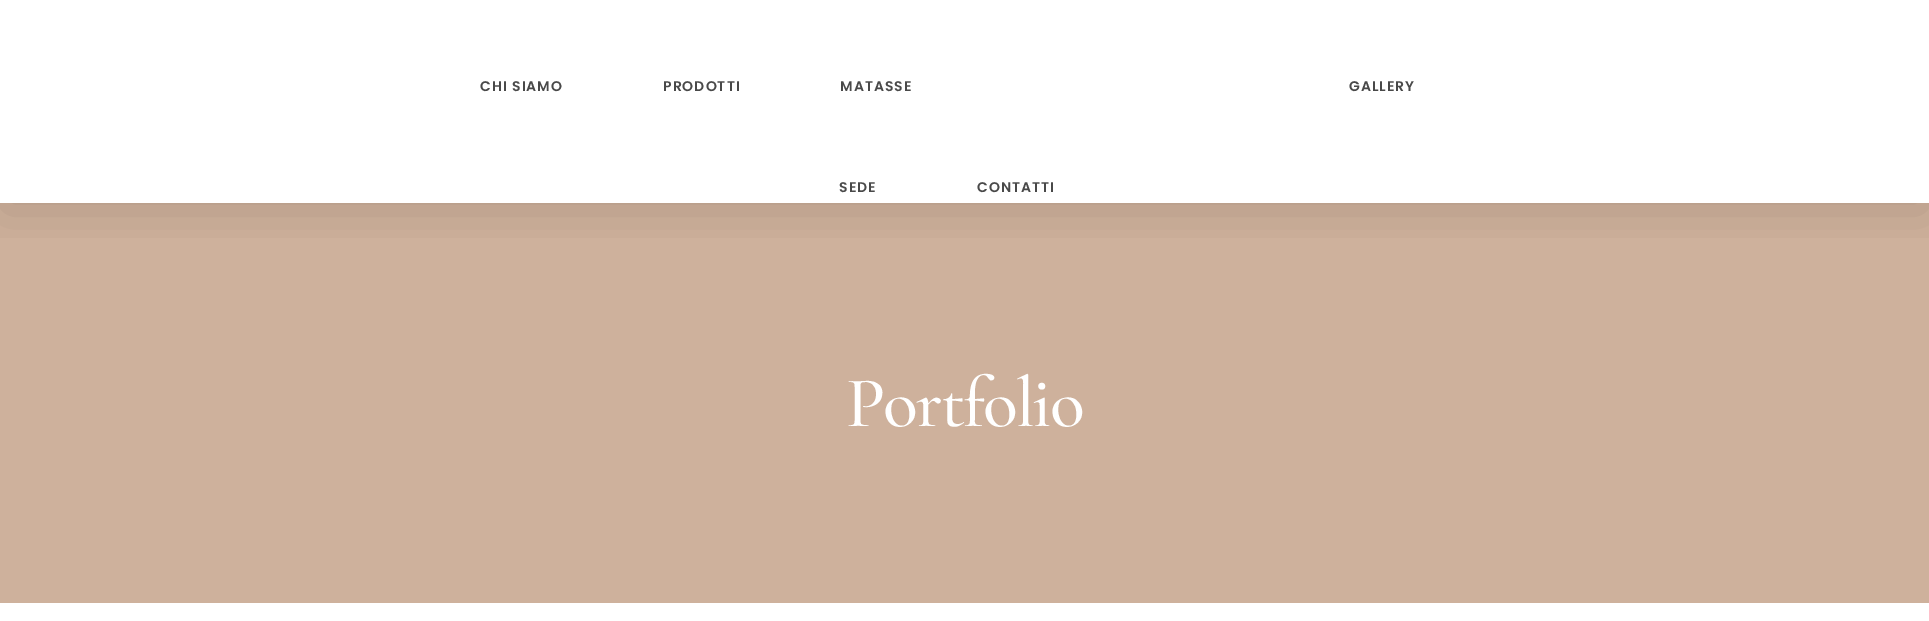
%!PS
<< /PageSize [1929 621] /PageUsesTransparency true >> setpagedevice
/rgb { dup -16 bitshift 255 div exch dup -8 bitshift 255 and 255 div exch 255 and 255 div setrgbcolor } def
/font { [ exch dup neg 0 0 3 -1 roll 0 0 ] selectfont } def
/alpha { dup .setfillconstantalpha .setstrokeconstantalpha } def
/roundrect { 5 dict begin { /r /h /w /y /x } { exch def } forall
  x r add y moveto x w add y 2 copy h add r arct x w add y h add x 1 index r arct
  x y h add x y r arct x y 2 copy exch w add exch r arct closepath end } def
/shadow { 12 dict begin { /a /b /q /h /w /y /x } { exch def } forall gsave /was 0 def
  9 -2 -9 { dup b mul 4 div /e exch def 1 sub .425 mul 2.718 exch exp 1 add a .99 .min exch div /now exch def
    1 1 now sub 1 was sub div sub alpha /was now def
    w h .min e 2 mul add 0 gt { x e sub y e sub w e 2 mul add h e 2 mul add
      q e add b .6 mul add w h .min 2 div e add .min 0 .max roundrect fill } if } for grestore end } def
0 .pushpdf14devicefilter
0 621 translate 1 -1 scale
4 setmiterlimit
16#FFFFFF rgb
0 0 1929 621 rectfill
16#CEB19C rgb
0 203 1929 400 rectfill
gsave
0 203 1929 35 rectclip
16#000000 rgb
2 12 1925 199 0 25 0.14 shadow
grestore
/Poppins-SemiBold 14 font
16#494949 rgb
480 91 moveto 1 0 (CHI SIAMO) ashow
663 91 moveto 1 0 (PRODOTTI) ashow
840 91 moveto 1 0 (MATASSE) ashow
1349 91 moveto 1 0 (GALLERY) ashow
839 192 moveto 1 0 (SEDE) ashow
977 192 moveto 1 0 (CONTATTI) ashow
/CormorantGaramond-Medium 72 font
16#FFFFFF rgb
846 426 moveto -2 0 (Portfolio) ashow
.poppdf14devicefilter showpage
